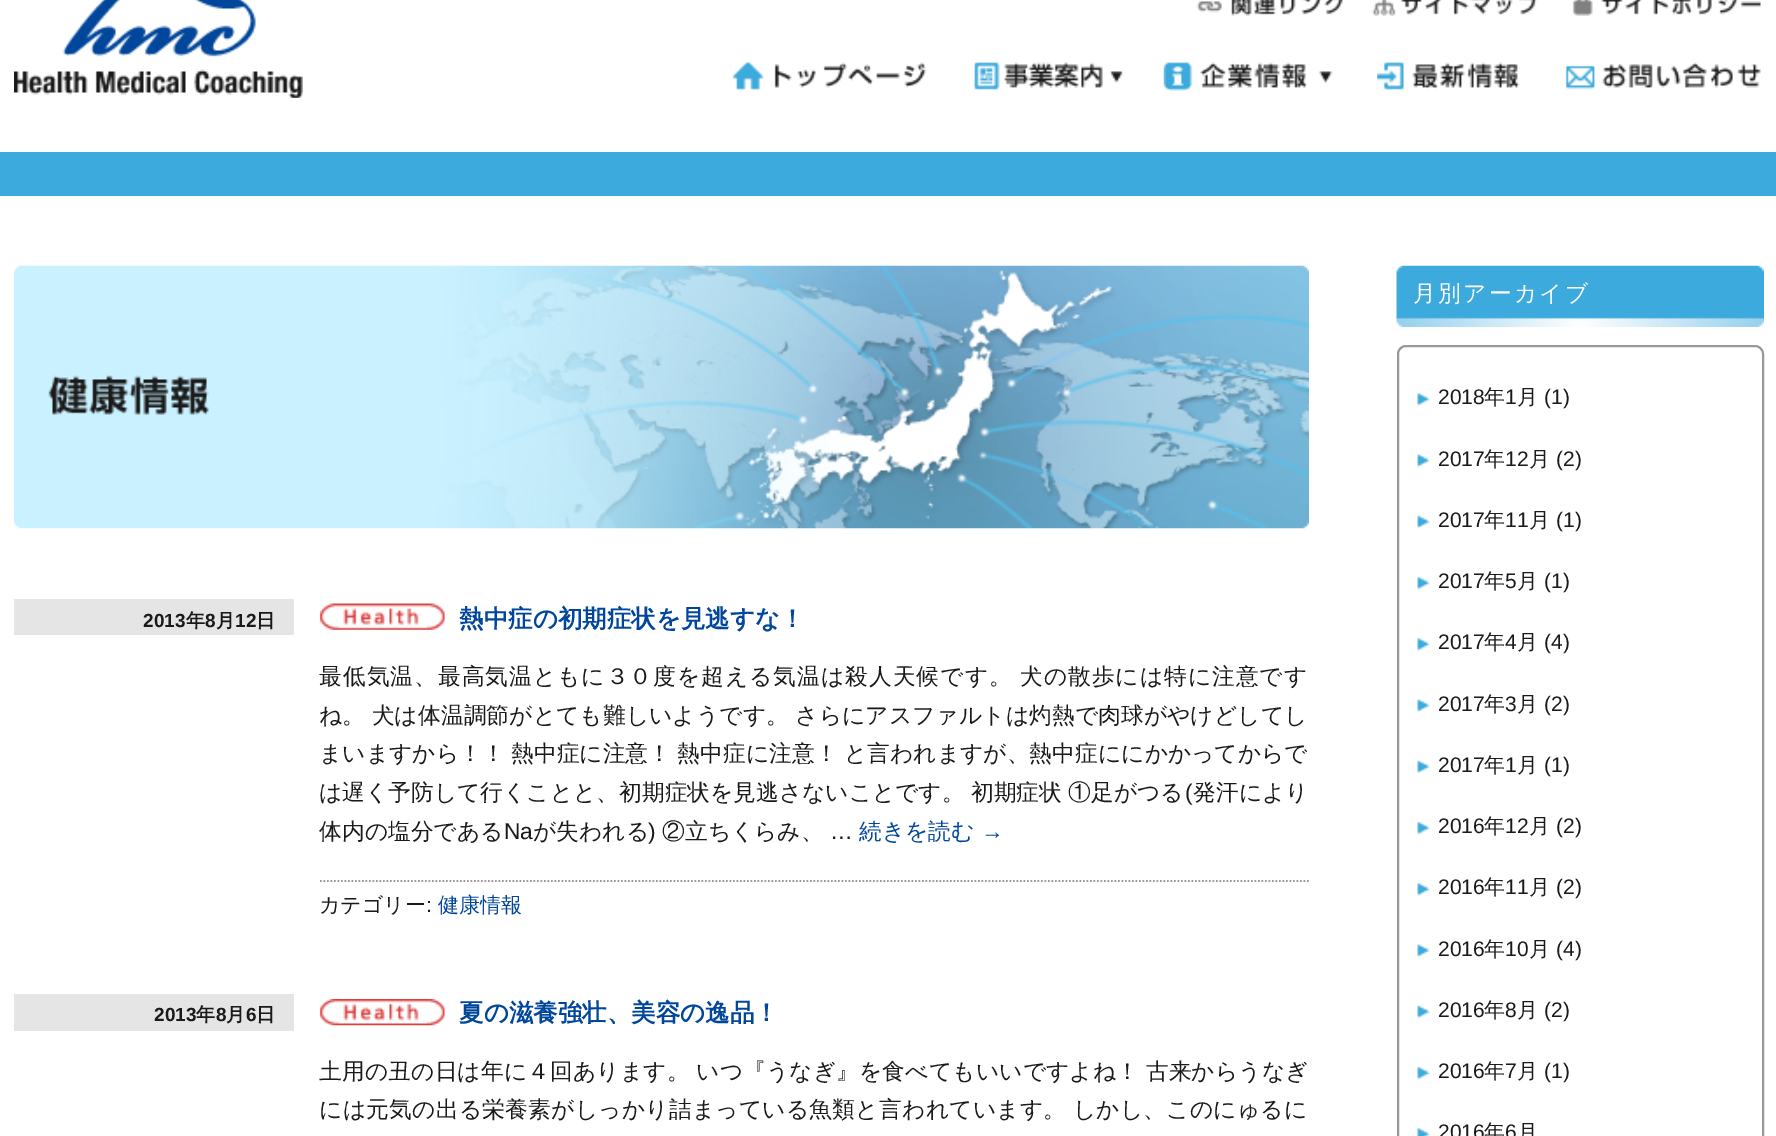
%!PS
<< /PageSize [1776 1136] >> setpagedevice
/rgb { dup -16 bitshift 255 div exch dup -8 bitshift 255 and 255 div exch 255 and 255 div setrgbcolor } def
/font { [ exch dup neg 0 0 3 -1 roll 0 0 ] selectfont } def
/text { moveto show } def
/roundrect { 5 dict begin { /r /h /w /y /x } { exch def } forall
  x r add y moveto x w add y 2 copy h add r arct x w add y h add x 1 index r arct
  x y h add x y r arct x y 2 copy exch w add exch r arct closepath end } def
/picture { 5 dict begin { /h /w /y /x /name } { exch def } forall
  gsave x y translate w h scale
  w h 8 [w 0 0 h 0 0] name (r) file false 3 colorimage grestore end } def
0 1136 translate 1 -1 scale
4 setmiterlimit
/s1 { /LiberationSans-Bold 19 font 16#1A1A1A rgb } def
/s2 { /WenQuanYiZenHei-Bold 19 font 16#1A1A1A rgb } def
/s3 { /WenQuanYiZenHei-Bold 24.5 font 16#00469B rgb } def
/s4 { /LiberationSans-Regular 22.75 font 16#1A1A1A rgb } def
/s5 { /WenQuanYiZenHei-Medium 22.75 font 16#1A1A1A rgb } def
/s6 { /WenQuanYiZenHei-Medium 22.75 font 16#00469B rgb } def
/s7 { /LiberationSans-Regular 22.75 font 16#00469B rgb } def
/s8 { /WenQuanYiZenHei-Medium 21 font 16#1A1A1A rgb } def
/s9 { /LiberationSans-Regular 21 font 16#1A1A1A rgb } def
/s10 { /WenQuanYiZenHei-Medium 21 font 16#00469B rgb } def
16#FFFFFF rgb
0 0 1776 1136 rectfill
(pic1.raw) 14 0 289 98 picture
(pic2.raw) 1196 0 147 16 picture
(pic3.raw) 1372 0 165 16 picture
(pic4.raw) 1572 0 189 16 picture
(pic5.raw) 732 61 195 29 picture
(pic6.raw) 974 62 149 28 picture
(pic7.raw) 1163 62 170 29 picture
(pic8.raw) 1377 62 143 28 picture
(pic9.raw) 1565 62 196 28 picture
16#3CAADC rgb
0 152 1776 44 rectfill
(pic10.raw) 14 265 1295 264 picture
16#E5E5E5 rgb
14 599 280 36 rectfill
s1
(2013) 143 627 text
s2
(年) 186 627 text
s1
(8) 205 627 text
s2
(月) 216 627 text
s1
(12) 235 627 text
s2
(日) 256 627 text
(pic11.raw) 320 603 125 27 picture
s3
(熱中症の初期症状を見逃すな！) 459 627 text
/WenQuanYiZenHei-Medium 22.75 font
16#1A1A1A rgb
319 684 moveto -0.5 0 32 1 0 (最低気温、最高気温ともに３０度を超える気温は殺人天候です。 犬の散歩には特に注意です) awidthshow
319 723 moveto -0.5 0 32 0.1 0 (ね。 犬は体温調節がとても難しいようです。 さらにアスファルトは灼熱で肉球がやけどしてし) awidthshow
319 761 moveto -0.5 0 32 0.05 0 (まいますから！！ 熱中症に注意！ 熱中症に注意！ と言われますが、熱中症ににかかってからで) awidthshow
319 800 moveto -0.5 0 32 (は遅く予防して行くことと、初期症状を見逃さないことです。 初期症状 ①足がつる) widthshow
s4
(\() 1185 800 text
s5
(発汗により) 1193 800 text
(体内の塩分である) 319 839 text
s4
(Na) 504 839 text
s5
(が失われる) 533 839 text
s4
(\)) 648 839 text
s5
(②立ちくらみ、) 662 839 text
s4
(…) 830 839 text
s6
(続きを読む) 859 839 text
s7
(→) 981 839 text
16#999999 rgb
1.8 setlinewidth
[1.75 1.75] 0 setdash
320 881 moveto 1309 881 lineto stroke
s8
(カテゴリー) 319 912 text
s9
(:) 426 912 text
s10
(健康情報) 438 912 text
16#E5E5E5 rgb
14 994 280 37 rectfill
s1
(2013) 154 1021 text
s2
(年) 196 1021 text
s1
(8) 216 1021 text
s2
(月) 226 1021 text
s1
(6) 246 1021 text
s2
(日) 256 1021 text
(pic12.raw) 320 999 125 27 picture
s3
(夏の滋養強壮、美容の逸品！) 459 1021 text
/WenQuanYiZenHei-Medium 22.75 font
16#1A1A1A rgb
319 1079 moveto -0.5 0 32 0.15 0 (土用の丑の日は年に４回あります。 いつ『うなぎ』を食べてもいいですよね！ 古来からうなぎ) awidthshow
319 1117 moveto -0.5 0 32 0.25 0 (には元気の出る栄養素がしっかり詰まっている魚類と言われています。 しかし、このにゅるに) awidthshow
(pic13.raw) 1396 265 368 62 picture
16#FFFFFF rgb
1413 301 moveto 2.25 0 (月別アーカイブ) ashow
16#999999 rgb
2 setlinewidth
[] 0 setdash
1398 346 365 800 8 roundrect stroke
(pic14.raw) 1417 393 13 14 picture
s9
(2018) 1438 404 text
s8
(年) 1484 404 text
s9
(1) 1505 404 text
s8
(月) 1517 404 text
s9
(\(1\)) 1544 404 text
(pic15.raw) 1417 454 13 14 picture
(2017) 1438 466 text
s8
(年) 1484 466 text
s9
(12) 1505 466 text
s8
(月) 1529 466 text
s9
(\(2\)) 1556 466 text
(pic16.raw) 1417 515 13 14 picture
(2017) 1438 527 text
s8
(年) 1484 527 text
s9
(11) 1505 527 text
s8
(月) 1529 527 text
s9
(\(1\)) 1556 527 text
(pic17.raw) 1417 576 13 14 picture
(2017) 1438 588 text
s8
(年) 1484 588 text
s9
(5) 1505 588 text
s8
(月) 1517 588 text
s9
(\(1\)) 1544 588 text
(pic14.raw) 1417 638 13 14 picture
(2017) 1438 649 text
s8
(年) 1484 649 text
s9
(4) 1505 649 text
s8
(月) 1517 649 text
s9
(\(4\)) 1544 649 text
(pic15.raw) 1417 699 13 14 picture
(2017) 1438 711 text
s8
(年) 1484 711 text
s9
(3) 1505 711 text
s8
(月) 1517 711 text
s9
(\(2\)) 1544 711 text
(pic16.raw) 1417 760 13 14 picture
(2017) 1438 772 text
s8
(年) 1484 772 text
s9
(1) 1505 772 text
s8
(月) 1517 772 text
s9
(\(1\)) 1544 772 text
(pic17.raw) 1417 821 13 14 picture
(2016) 1438 833 text
s8
(年) 1484 833 text
s9
(12) 1505 833 text
s8
(月) 1529 833 text
s9
(\(2\)) 1556 833 text
(pic14.raw) 1417 883 13 14 picture
(2016) 1438 894 text
s8
(年) 1484 894 text
s9
(11) 1505 894 text
s8
(月) 1529 894 text
s9
(\(2\)) 1556 894 text
(pic15.raw) 1417 944 13 14 picture
(2016) 1438 956 text
s8
(年) 1484 956 text
s9
(10) 1505 956 text
s8
(月) 1529 956 text
s9
(\(4\)) 1556 956 text
(pic16.raw) 1417 1005 13 14 picture
(2016) 1438 1017 text
s8
(年) 1484 1017 text
s9
(8) 1505 1017 text
s8
(月) 1517 1017 text
s9
(\(2\)) 1544 1017 text
(pic17.raw) 1417 1066 13 14 picture
(2016) 1438 1078 text
s8
(年) 1484 1078 text
s9
(7) 1505 1078 text
s8
(月) 1517 1078 text
s9
(\(1\)) 1544 1078 text
(pic18.raw) 1417 1128 13 8 picture
(2016) 1438 1139 text
s8
(年) 1484 1139 text
s9
(6) 1505 1139 text
s8
(月) 1517 1139 text
showpage
